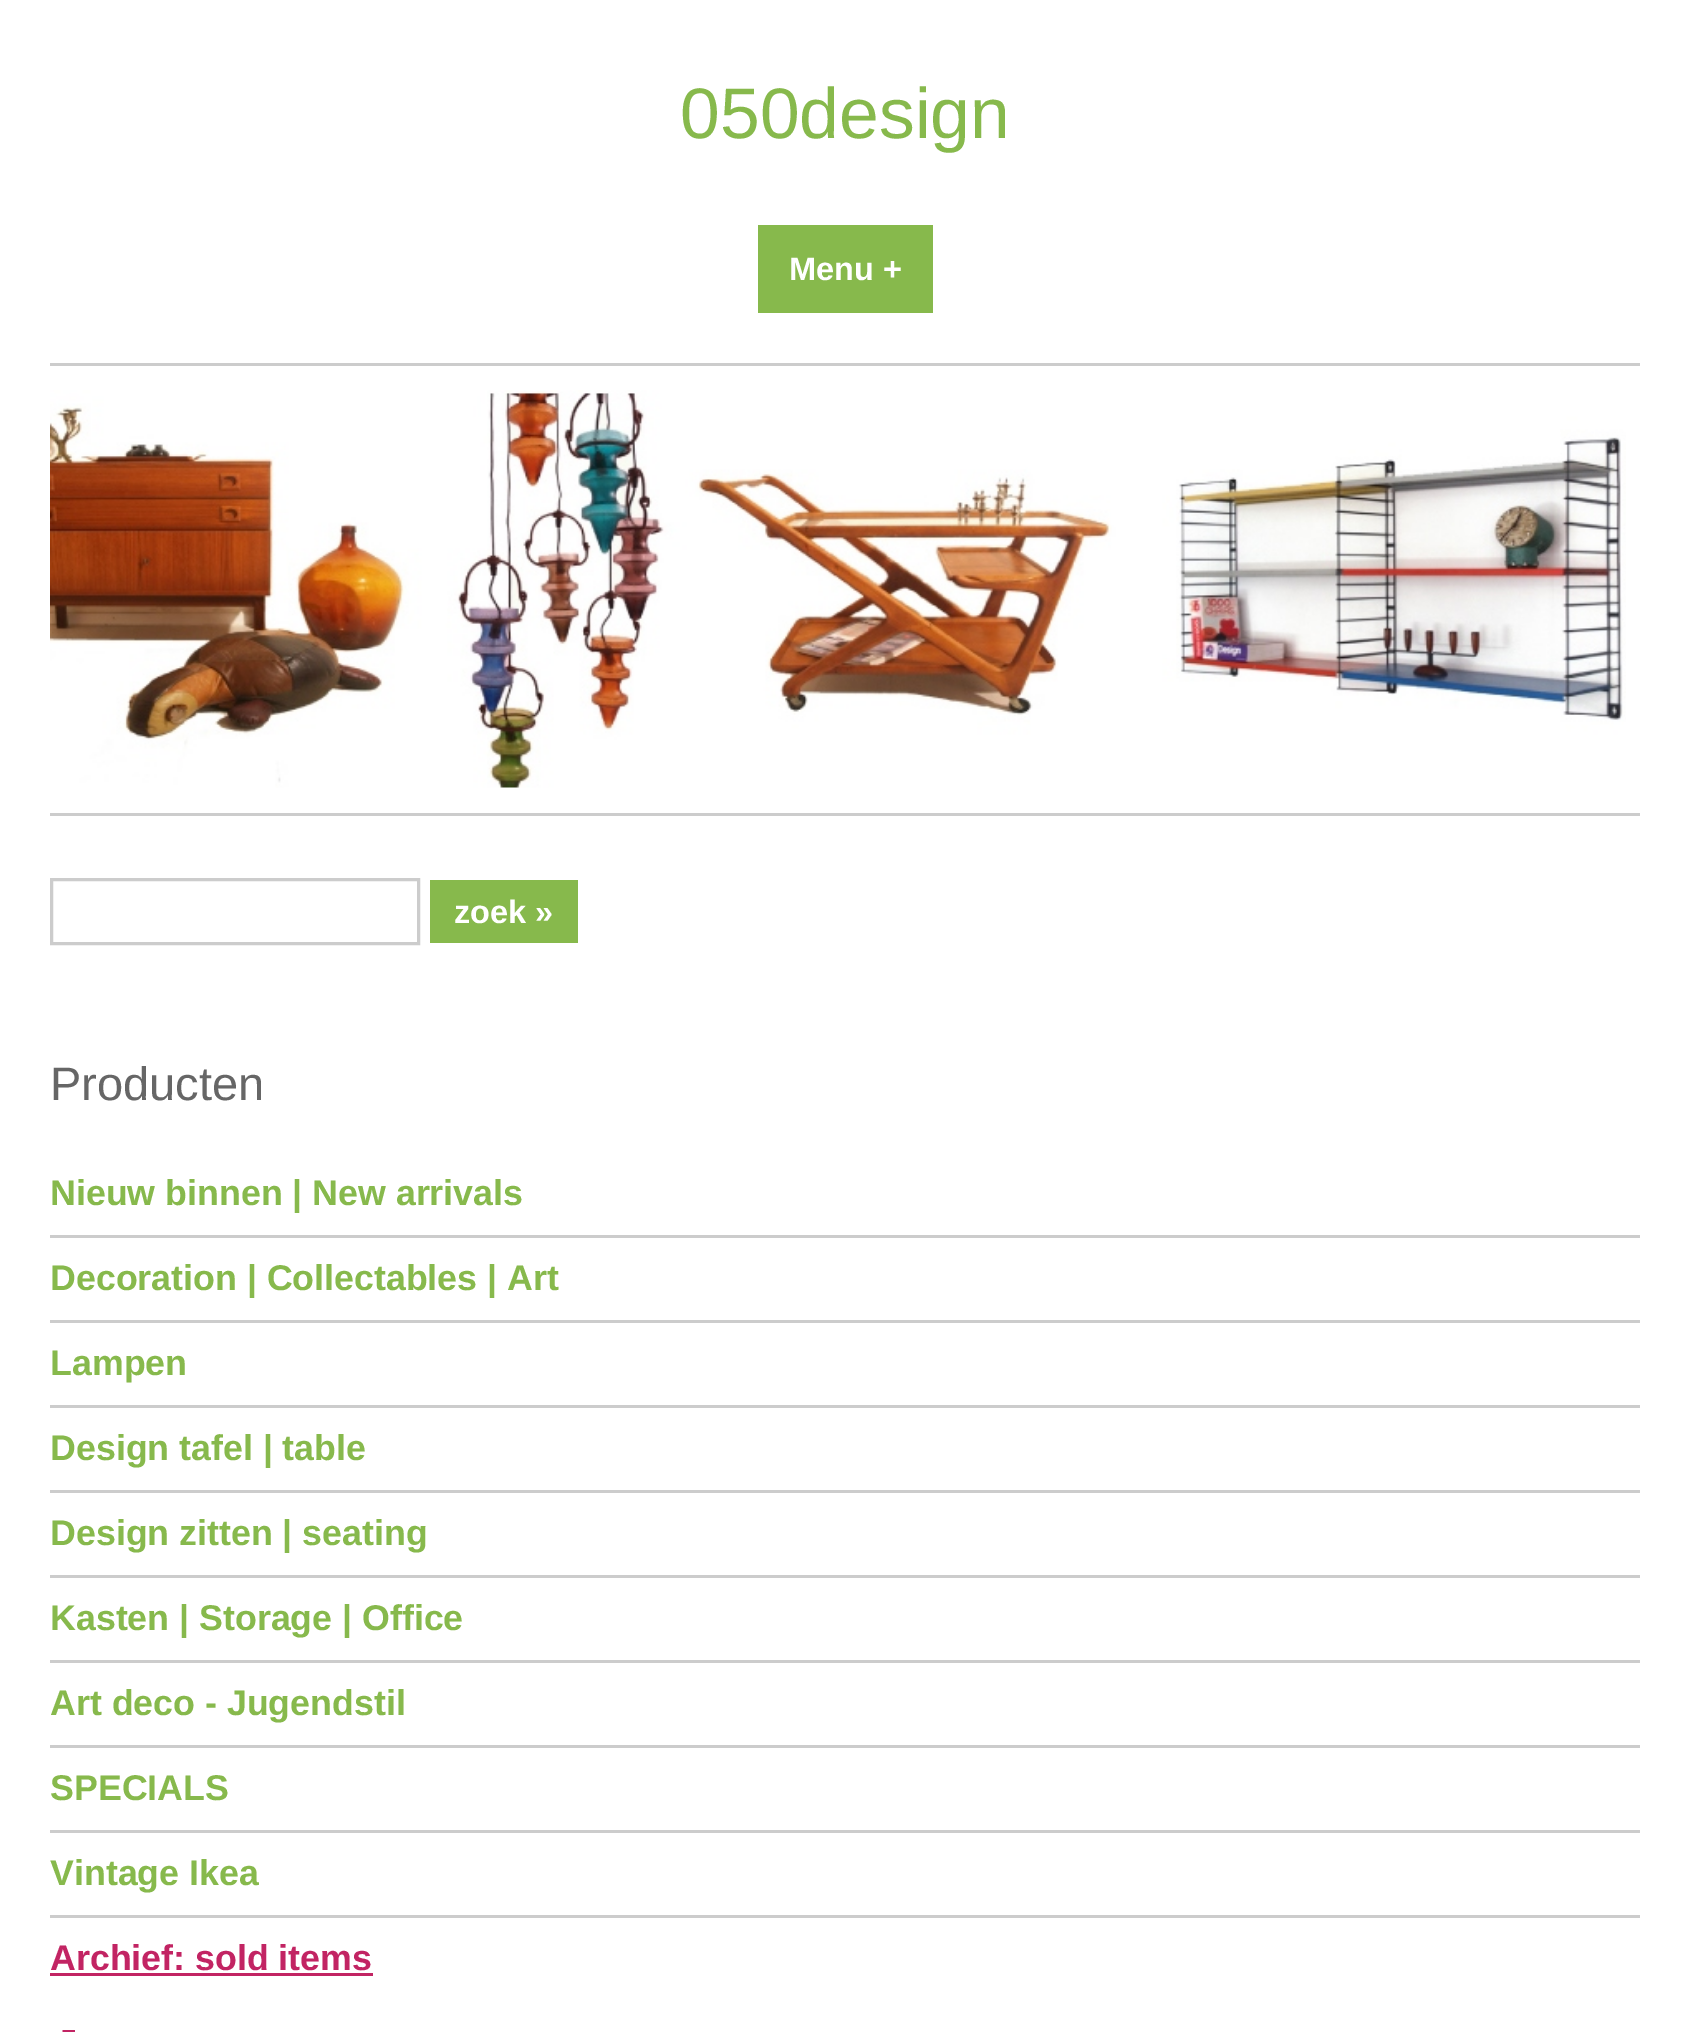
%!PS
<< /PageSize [1688 2032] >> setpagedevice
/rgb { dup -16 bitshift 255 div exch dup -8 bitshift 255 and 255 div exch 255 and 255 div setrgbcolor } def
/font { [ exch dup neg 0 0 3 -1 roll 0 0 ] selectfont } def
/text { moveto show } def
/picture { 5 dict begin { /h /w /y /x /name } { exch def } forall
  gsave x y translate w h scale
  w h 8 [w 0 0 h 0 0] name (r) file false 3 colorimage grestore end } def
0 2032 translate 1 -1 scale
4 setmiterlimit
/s1 { /LiberationSans-Regular 71.5 font 16#87B94C rgb } def
/s2 { /LiberationSans-Bold 32.5 font 16#FFFFFF rgb } def
/s3 { /LiberationSans-Regular 47 font 16#666666 rgb } def
/s4 { /LiberationSans-Bold 35.75 font 16#87B94C rgb } def
/s5 { /LiberationSans-Bold 35.75 font 16#C22463 rgb } def
16#FFFFFF rgb
0 0 1688 2032 rectfill
s1
(050design) 680 138 text
758 225 175 88 rectfill
s2
(Menu +) 789 280 text
16#CCCCCC rgb
50 363 1590 3 rectfill
50 813 1590 3 rectfill
(pic1.raw) 50 390 1576 398 picture
3 setlinewidth
51.5 879.5 367 64 rectstroke
16#87B94C rgb
430 880 148 63 rectfill
s2
(zoek ») 454 923 text
s3
(Producten) 50 1100 text
16#CCCCCC rgb
50 1235 1590 3 rectfill
s4
(Nieuw binnen | New arrivals) 50 1205 text
16#CCCCCC rgb
50 1320 1590 3 rectfill
s4
(Decoration | Collectables | Art) 50 1290 text
16#CCCCCC rgb
50 1405 1590 3 rectfill
s4
(Lampen) 50 1375 text
16#CCCCCC rgb
50 1490 1590 3 rectfill
s4
(Design tafel | table) 50 1460 text
16#CCCCCC rgb
50 1575 1590 3 rectfill
s4
(Design zitten | seating) 50 1545 text
16#CCCCCC rgb
50 1660 1590 3 rectfill
s4
(Kasten | Storage | Office) 50 1630 text
16#CCCCCC rgb
50 1745 1590 3 rectfill
s4
(Art deco - Jugendstil) 50 1715 text
16#CCCCCC rgb
50 1830 1590 3 rectfill
s4
(SPECIALS) 50 1800 text
16#CCCCCC rgb
50 1915 1590 3 rectfill
s4
(Vintage Ikea) 50 1885 text
s5
(Archief: sold items) 50 1970 text
50 1973 323 3 rectfill
(pic2.raw) 62 2030 13 2 picture
showpage
